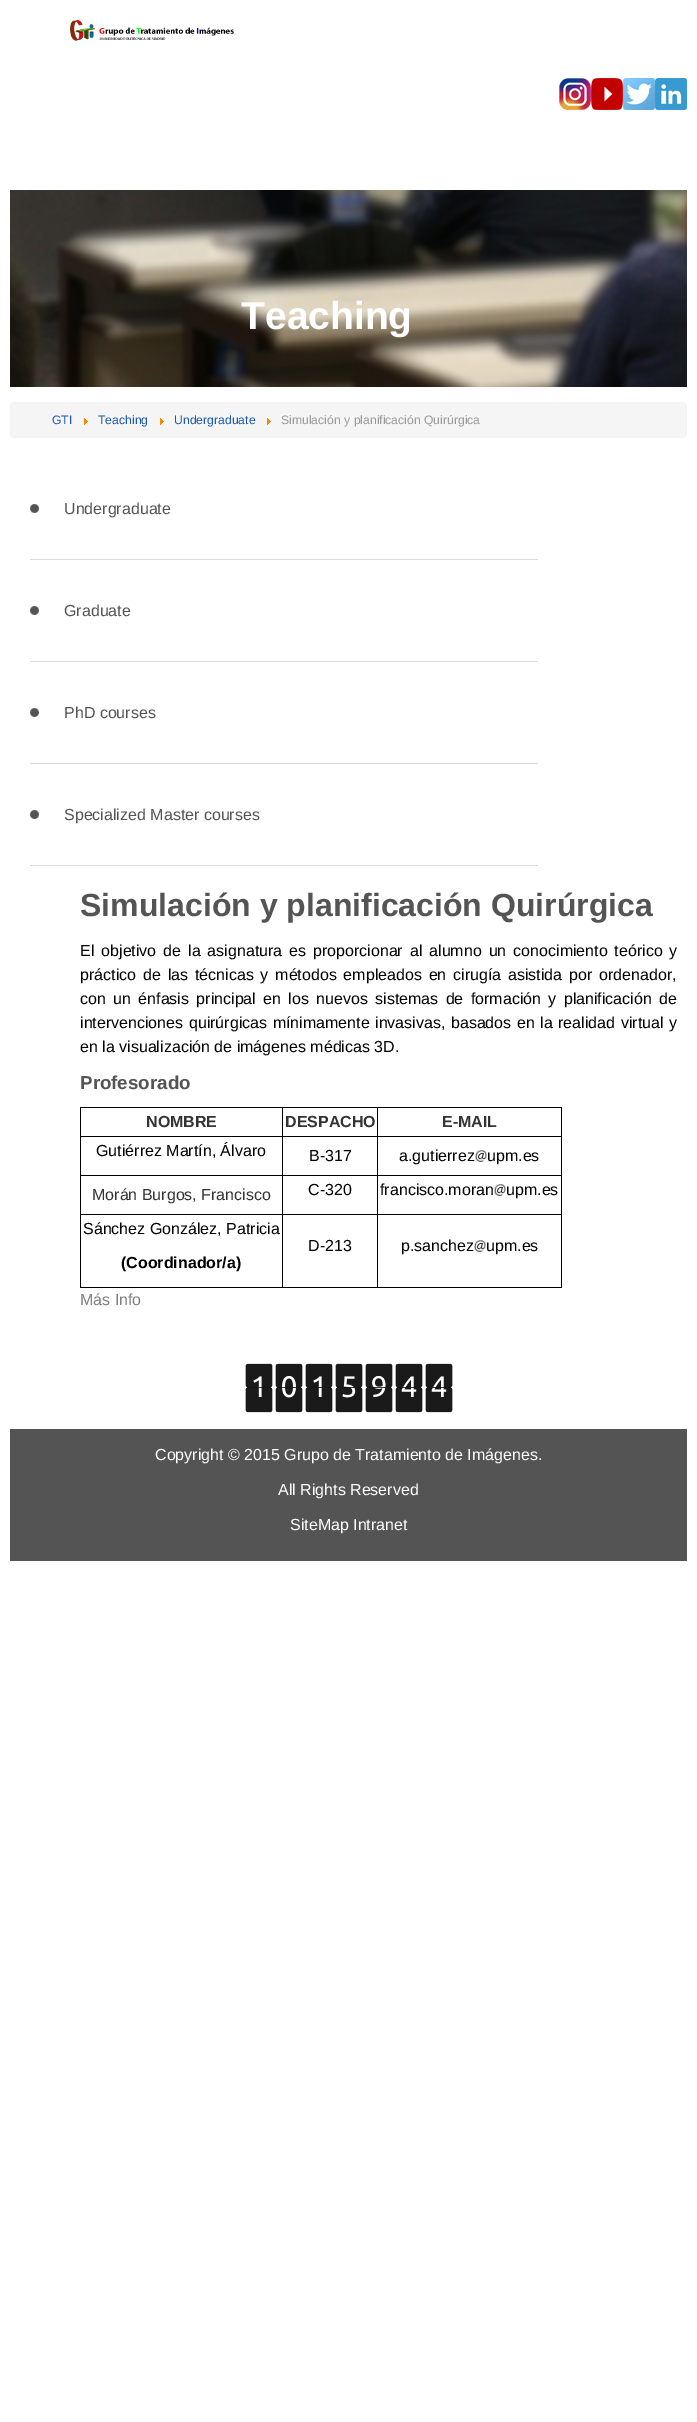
%!PS
<< /PageSize [697 2422] >> setpagedevice
/rgb { dup -16 bitshift 255 div exch dup -8 bitshift 255 and 255 div exch 255 and 255 div setrgbcolor } def
/font { [ exch dup neg 0 0 3 -1 roll 0 0 ] selectfont } def
/text { moveto show } def
/roundrect { 5 dict begin { /r /h /w /y /x } { exch def } forall
  x r add y moveto x w add y 2 copy h add r arct x w add y h add x 1 index r arct
  x y h add x y r arct x y 2 copy exch w add exch r arct closepath end } def
/picture { 5 dict begin { /h /w /y /x /name } { exch def } forall
  gsave x y translate w h scale
  w h 8 [w 0 0 h 0 0] name (r) file false 3 colorimage grestore end } def
0 2422 translate 1 -1 scale
4 setmiterlimit
/s1 { /LiberationSans-Bold 39 font 16#FFFFFF rgb } def
/s2 { /LiberationSans-Regular 12.2 font 16#1B57B1 rgb } def
/s3 { /LiberationSans-Regular 12.2 font 16#999999 rgb } def
/s4 { /LiberationSans-Regular 16 font 16#545454 rgb } def
/s5 { /LiberationSans-Bold 32 font 16#545454 rgb } def
/s6 { /LiberationSans-Regular 16 font 16#000000 rgb } def
/s7 { /LiberationSans-Bold 18.75 font 16#545454 rgb } def
/s8 { /LiberationSans-Bold 16 font 16#333333 rgb } def
/s9 { /LiberationSans-Regular 16 font 16#333333 rgb } def
/s10 { /LiberationSans-Bold 16 font 16#000000 rgb } def
/s11 { /LiberationSans-Regular 16 font 16#808080 rgb } def
/s12 { /LiberationSans-Regular 16 font 16#FFFFFF rgb } def
16#FFFFFF rgb
0 0 697 2422 rectfill
(pic1.raw) 70 20 164 21 picture
(pic2.raw) 559 78 32 32 picture
(pic3.raw) 591 78 32 32 picture
(pic4.raw) 623 78 32 32 picture
(pic5.raw) 655 78 32 32 picture
(pic6.raw) 10 190 677 197 picture
s1
(Teaching) 241 329 text
16#F5F5F5 rgb
10 402 677 36 4 roundrect fill
s2
(GTI) 52 424 text
(pic7.raw) 84 418 4 7 picture
(Teaching) 98 424 text
(pic7.raw) 160 418 4 7 picture
(Undergraduate) 174 424 text
(pic7.raw) 267 418 4 7 picture
s3
(Simulación y planificación Quirúrgica) 281 424 text
(pic8.raw) 30 504 9 9 picture
16#DCDCDC rgb
30 559 508 1 rectfill
s4
(Undergraduate) 64 514 text
(pic8.raw) 30 606 9 9 picture
16#DCDCDC rgb
30 661 508 1 rectfill
s4
(Graduate) 64 616 text
(pic8.raw) 30 708 9 9 picture
16#DCDCDC rgb
30 763 508 1 rectfill
s4
(PhD courses) 64 718 text
(pic8.raw) 30 810 9 9 picture
16#DCDCDC rgb
30 865 508 1 rectfill
s4
(Specialized Master courses) 64 820 text
s5
(Simulación y planificación Quirúrgica) 80 916 text
/LiberationSans-Regular 16 font
16#000000 rgb
80 956 moveto 2.5 0 32 (El objetivo de la asignatura es proporcionar al alumno un conocimiento teórico y) widthshow
80 980 moveto 2.4 0 32 (práctico de las técnicas y métodos empleados en cirugía asistida por ordenador,) widthshow
80 1004 moveto 2.9 0 32 (con un énfasis principal en los nuevos sistemas de formación y planificación de) widthshow
80 1028 moveto 1.1 0 32 (intervenciones quirúrgicas mínimamente invasivas, basados en la realidad virtual y) widthshow
(en la visualización de imágenes médicas 3D.) 80 1052 text
s7
(Profesorado) 80 1089 text
16#000000 rgb
80 1107 482 1 rectfill
561 1107 1 181 rectfill
80 1287 482 1 rectfill
80 1107 1 181 rectfill
s8
(NOMBRE) 146 1127 text
16#000000 rgb
377 1136 185 1 rectfill
377 1175 185 1 rectfill
377 1214 185 1 rectfill
377 1214 1 74 rectfill
282 1214 96 1 rectfill
377 1175 1 40 rectfill
282 1175 96 1 rectfill
377 1136 1 40 rectfill
282 1136 96 1 rectfill
282 1214 1 74 rectfill
80 1214 203 1 rectfill
282 1175 1 40 rectfill
80 1175 203 1 rectfill
282 1136 1 40 rectfill
80 1136 203 1 rectfill
282 1107 1 30 rectfill
s8
(DESPACHO) 285 1127 text
16#000000 rgb
377 1107 1 30 rectfill
s8
(E-MAIL) 442 1127 text
s6
(Gutiérrez Martín, Álvaro) 96 1156 text
(B-317) 309 1161 text
(a.gutierrez) 399 1161 text
(pic9.raw) 475 1150 12 12 picture
(upm.es) 487 1161 text
s9
(Morán Burgos, Francisco) 92 1200 text
s6
(C-320) 308 1195 text
(francisco.moran) 380 1195 text
(pic9.raw) 494 1184 12 12 picture
(upm.es) 506 1195 text
(Sánchez González, Patricia) 83 1234 text
s10
(\(Coordinador/a\)) 121 1268 text
s6
(D-213) 308 1251 text
(p.sanchez) 401 1251 text
(pic9.raw) 474 1240 12 12 picture
(upm.es) 486 1251 text
s11
(Más Info) 80 1305 text
(pic10.raw) 245 1363 28 50 picture
(pic11.raw) 275 1363 28 50 picture
(pic10.raw) 305 1363 28 50 picture
(pic12.raw) 335 1363 28 50 picture
(pic13.raw) 365 1363 28 50 picture
(pic14.raw) 395 1363 28 50 picture
(pic14.raw) 425 1363 28 50 picture
16#545454 rgb
10 1429 677 132 rectfill
s12
(Copyright © 2015 Grupo de Tratamiento de Imágenes.) 155 1460 text
(All Rights Reserved) 278 1495 text
(SiteMap Intranet) 290 1530 text
showpage
